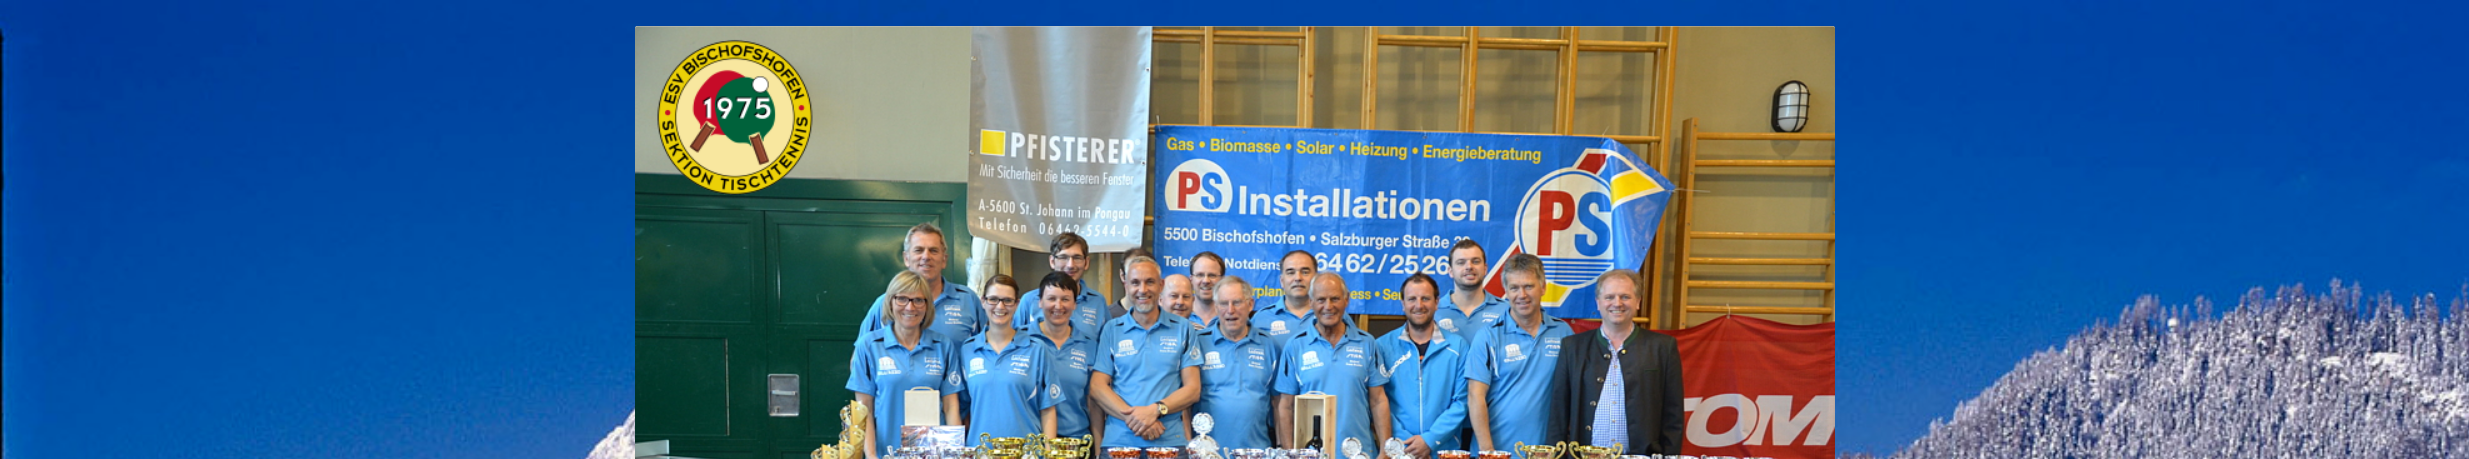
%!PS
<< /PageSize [2469 459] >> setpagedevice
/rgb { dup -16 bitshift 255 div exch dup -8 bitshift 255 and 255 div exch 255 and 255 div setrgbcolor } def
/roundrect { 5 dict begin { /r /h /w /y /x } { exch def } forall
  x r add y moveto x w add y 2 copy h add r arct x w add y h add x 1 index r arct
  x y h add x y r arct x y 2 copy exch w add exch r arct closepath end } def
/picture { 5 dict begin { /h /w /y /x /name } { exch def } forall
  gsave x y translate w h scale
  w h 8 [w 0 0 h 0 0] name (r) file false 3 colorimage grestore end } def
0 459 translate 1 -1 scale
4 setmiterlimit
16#FFFFFF rgb
0 0 2469 459 rectfill
(pic1.raw) 0 0 2469 459 picture
(pic2.raw) 635 26 1200 3 picture
16#CCCCCC rgb
635 26 1200 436 2.5 roundrect fill
(pic3.raw) 635 26 1200 433 picture
(pic4.raw) 657 39 156 156 picture
showpage
